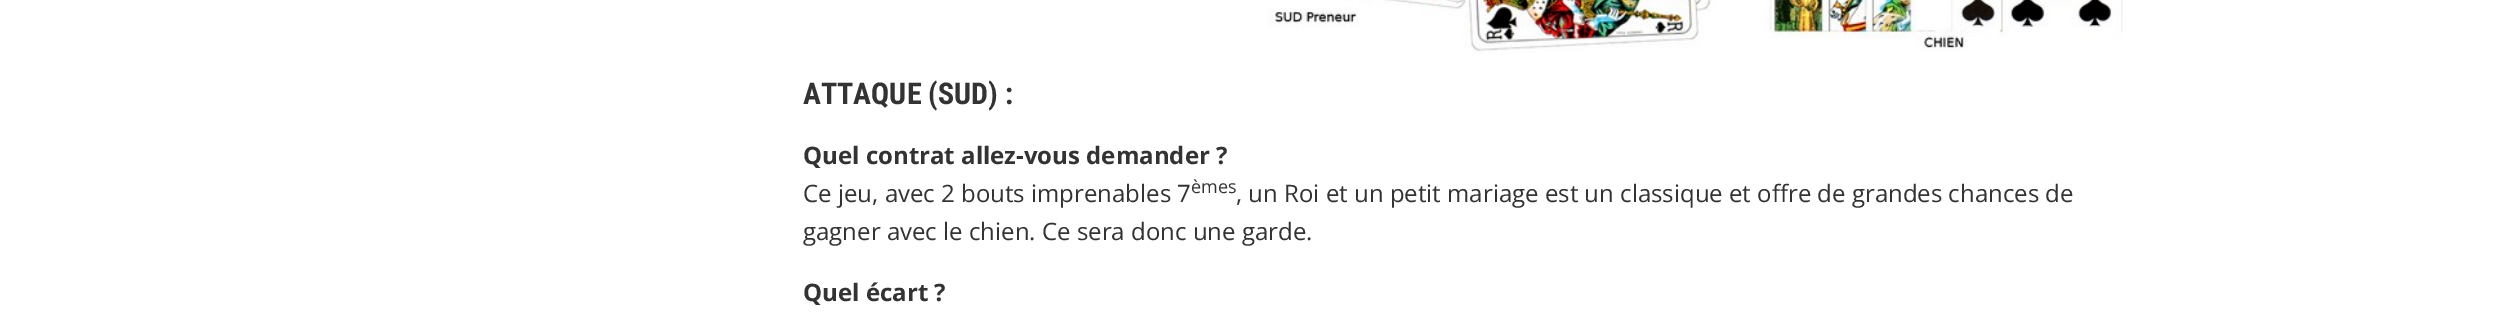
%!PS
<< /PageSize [2519 322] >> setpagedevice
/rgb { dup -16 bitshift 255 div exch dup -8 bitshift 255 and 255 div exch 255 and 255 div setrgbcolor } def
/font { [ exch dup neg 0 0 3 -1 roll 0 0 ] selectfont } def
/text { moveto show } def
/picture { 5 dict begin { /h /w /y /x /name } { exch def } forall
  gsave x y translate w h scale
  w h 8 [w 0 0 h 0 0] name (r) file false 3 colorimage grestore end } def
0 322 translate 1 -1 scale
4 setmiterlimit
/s1 { /RobotoCondensed-Bold 30 font 16#333333 rgb } def
/s2 { /OpenSans-Bold 24 font 16#333333 rgb } def
/s3 { /OpenSans-Regular 24 font 16#333333 rgb } def
/s4 { /OpenSans-Regular 18 font 16#333333 rgb } def
16#FFFFFF rgb
0 0 2519 322 rectfill
(pic1.raw) 1267 0 856 54 picture
s1
(ATTAQUE \(SUD\) :) 803 104 text
s2
(Quel contrat allez-vous demander ?) 803 164 text
s3
(Ce jeu, avec 2 bouts imprenables 7) 803 202 text
s4
(èmes) 1191 193 text
s3
(, un Roi et un petit mariage est un classique et offre de grandes chances de) 1236 202 text
(gagner avec le chien. Ce sera donc une garde.) 803 240 text
s2
(Quel écart ?) 803 301 text
showpage
